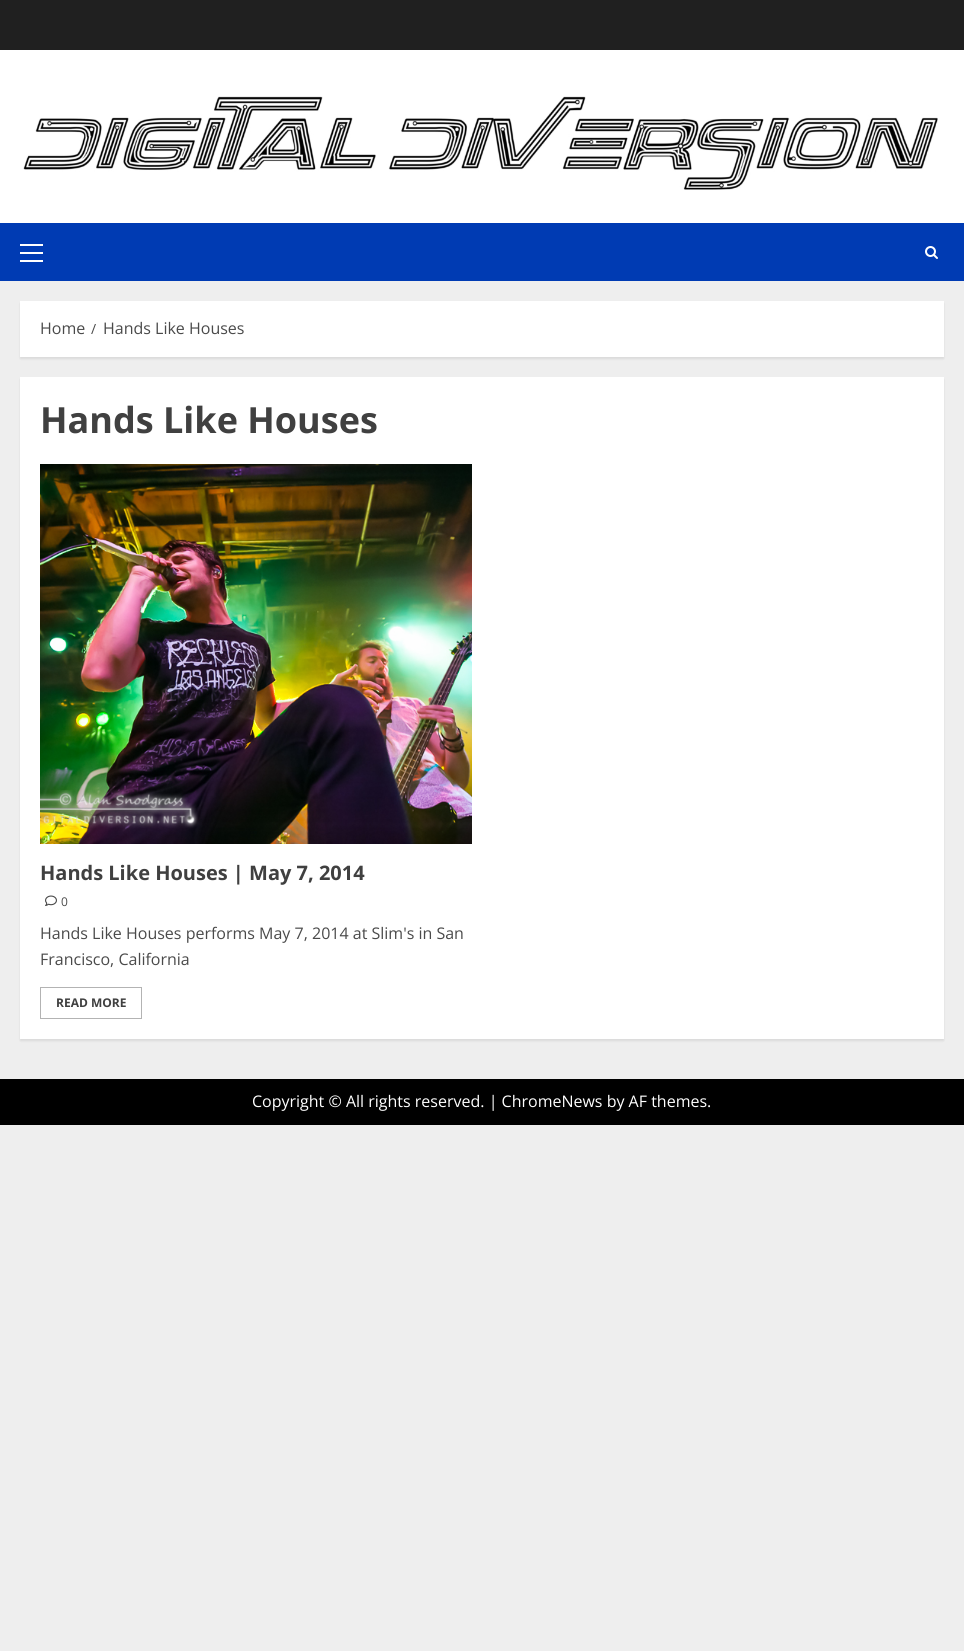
import math
import cairo


def round_path(ctx, x, y, w, h, r):
	ctx.new_sub_path()
	for i, (u, v) in enumerate([(x + w - r, y + h - r), (x + r, y + h - r), (x + r, y + r), (x + w - r, y + r)]):
		ctx.arc(u, v, r, i * math.pi / 2, (i + 1) * math.pi / 2)
	ctx.close_path()

def blur_box(ctx, x, y, w, h, r, blur, alpha):
	ctx.push_group_with_content(cairo.CONTENT_ALPHA)
	ctx.set_operator(cairo.OPERATOR_SOURCE)
	for i in range(15, -16, -2):
		e = blur * i / 6
		if min(w, h) + 2 * e > 0:
			ctx.set_source_rgba(0, 0, 0, alpha * math.erfc((i - 1) / 8.5) / 2)
			round_path(ctx, x - e, y - e, w + 2 * e, h + 2 * e, max(0, min(r + e + blur * .6, min(w, h) / 2 + e)))
			ctx.fill()
	ctx.mask(ctx.pop_group())

def paste(ctx, path, x, y, w, h):
	ctx.save()
	ctx.set_source_surface(cairo.ImageSurface.create_from_png(path), x, y)
	ctx.rectangle(x, y, w, h)
	ctx.fill()
	ctx.restore()

def draw(ctx):
	ctx.set_source_rgb(0.933, 0.933, 0.933)
	ctx.paint()
	ctx.set_source_rgb(0.125, 0.125, 0.125)
	ctx.rectangle(0, 0, 964, 50)
	ctx.fill()
	ctx.set_source_rgb(1, 1, 1)
	ctx.rectangle(0, 50, 964, 173)
	ctx.fill()
	paste(ctx, 'media/1.png', 23, 96, 915, 94)
	ctx.set_source_rgb(0, 0.231, 0.702)
	ctx.rectangle(0, 223, 964, 58)
	ctx.fill()
	ctx.set_source_rgb(1, 1, 1)
	ctx.rectangle(20, 252, 23, 2)
	ctx.rectangle(20, 244, 23, 2)
	ctx.rectangle(20, 260, 23, 2)
	ctx.fill()
	paste(ctx, 'media/2.png', 925, 246, 13, 13)
	ctx.set_source_rgb(0, 0, 0)
	blur_box(ctx, 20, 303, 924, 56, 0, 1, 0.08)
	ctx.set_source_rgb(1, 1, 1)
	ctx.rectangle(20, 301, 924, 56)
	ctx.fill()
	ctx.select_font_face('Open Sans')
	ctx.set_font_size(16)
	ctx.set_source_rgb(0.29, 0.29, 0.29)
	ctx.move_to(40, 334)
	ctx.show_text('Home')
	ctx.set_font_size(14)
	ctx.move_to(91, 334)
	ctx.show_text('/')
	ctx.set_font_size(16)
	ctx.move_to(103, 334)
	ctx.show_text('Hands Like Houses')
	ctx.set_source_rgb(0, 0, 0)
	blur_box(ctx, 20, 379, 924, 662, 0, 1, 0.08)
	ctx.set_source_rgb(1, 1, 1)
	ctx.rectangle(20, 377, 924, 662)
	ctx.fill()
	ctx.select_font_face('Open Sans', cairo.FONT_SLANT_NORMAL, cairo.FONT_WEIGHT_BOLD)
	ctx.set_font_size(36)
	ctx.set_source_rgb(0.251, 0.251, 0.251)
	ctx.move_to(40, 433)
	ctx.show_text('Hands Like Houses')
	paste(ctx, 'media/3.png', 40, 464, 432, 380)
	ctx.set_font_size(20)
	ctx.move_to(40, 880)
	ctx.show_text('Hands Like Houses | May 7, 2014')
	paste(ctx, 'media/4.png', 45, 895, 12, 11)
	ctx.select_font_face('Open Sans')
	ctx.set_font_size(12)
	ctx.set_source_rgb(0.29, 0.29, 0.29)
	ctx.move_to(61, 906)
	ctx.show_text('0')
	ctx.set_font_size(16)
	ctx.move_to(40, 939)
	ctx.show_text('Hands Like Houses performs May 7, 2014 at Slim\'s in San')
	ctx.move_to(40, 965)
	ctx.show_text('Francisco, California')
	ctx.rectangle(40.5, 987.5, 101, 31)
	ctx.set_source_rgb(0.702, 0.702, 0.702)
	ctx.set_line_width(1)
	ctx.stroke()
	ctx.select_font_face('Open Sans', cairo.FONT_SLANT_NORMAL, cairo.FONT_WEIGHT_BOLD)
	ctx.set_font_size(12)
	ctx.set_source_rgb(0.251, 0.251, 0.251)
	ctx.move_to(56, 1007)
	ctx.show_text('READ MORE')
	ctx.set_source_rgb(0, 0, 0)
	ctx.rectangle(0, 1079, 964, 46)
	ctx.fill()
	ctx.select_font_face('Open Sans')
	ctx.set_font_size(16)
	ctx.set_source_rgb(1, 1, 1)
	ctx.move_to(252, 1107)
	ctx.show_text('Copyright © All rights reserved. | ChromeNews by AF themes.')


surface = cairo.ImageSurface(cairo.FORMAT_RGB24, 964, 1651)
ctx = cairo.Context(surface)
options = cairo.FontOptions()
options.set_hint_metrics(cairo.HINT_METRICS_OFF)
options.set_hint_style(cairo.HINT_STYLE_NONE)
ctx.set_font_options(options)
ctx.set_miter_limit(4)
draw(ctx)
surface.write_to_png('image.png')
